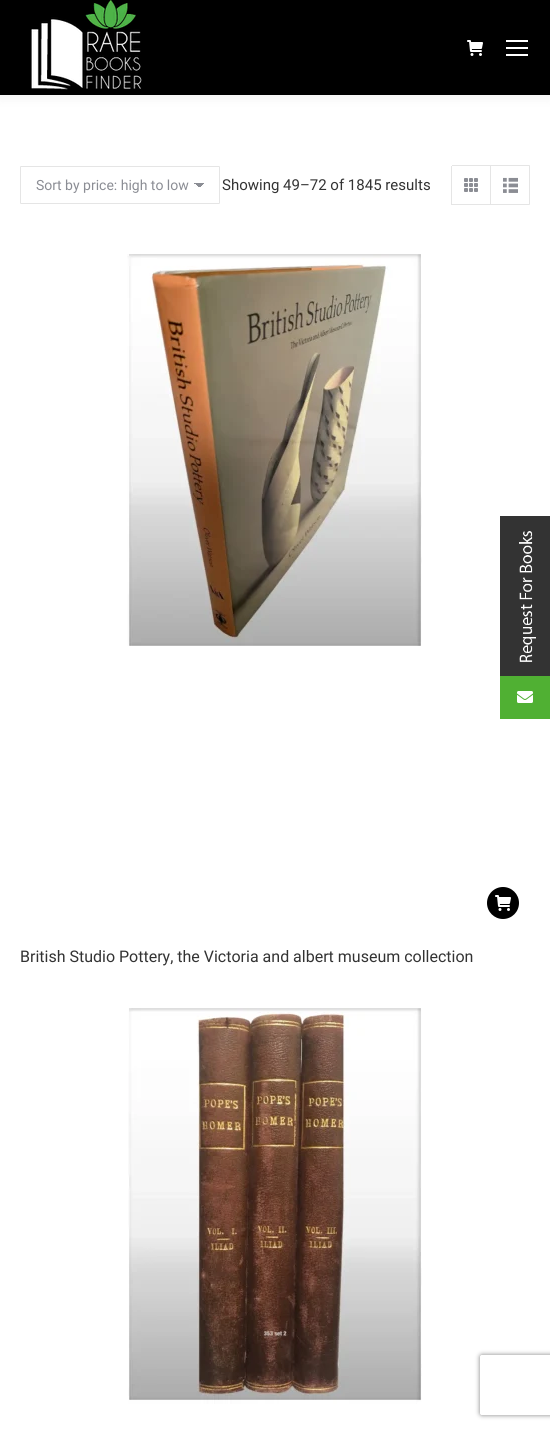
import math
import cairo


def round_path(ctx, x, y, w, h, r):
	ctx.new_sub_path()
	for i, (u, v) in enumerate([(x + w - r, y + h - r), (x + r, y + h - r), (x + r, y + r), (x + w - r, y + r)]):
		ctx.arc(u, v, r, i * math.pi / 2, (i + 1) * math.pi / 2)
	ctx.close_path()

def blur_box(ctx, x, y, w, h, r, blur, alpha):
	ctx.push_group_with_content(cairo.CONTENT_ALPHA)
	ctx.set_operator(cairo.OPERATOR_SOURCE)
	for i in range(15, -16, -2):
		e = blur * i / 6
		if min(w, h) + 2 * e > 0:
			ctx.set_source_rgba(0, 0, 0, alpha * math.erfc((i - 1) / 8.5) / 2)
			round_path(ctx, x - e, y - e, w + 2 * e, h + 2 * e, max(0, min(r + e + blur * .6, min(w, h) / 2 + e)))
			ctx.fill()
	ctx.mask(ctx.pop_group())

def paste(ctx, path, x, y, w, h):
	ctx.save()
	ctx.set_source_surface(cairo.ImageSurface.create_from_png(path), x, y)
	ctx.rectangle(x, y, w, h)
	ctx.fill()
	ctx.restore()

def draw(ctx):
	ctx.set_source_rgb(1, 1, 1)
	ctx.paint()
	ctx.set_source_rgb(0, 0, 0)
	blur_box(ctx, -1, -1, 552, 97, 0, 7.5, 0.07)
	ctx.set_source_rgb(0, 0, 0)
	ctx.rectangle(0, 0, 550, 95)
	ctx.fill()
	paste(ctx, 'media/1.png', 31, 0, 111, 90)
	paste(ctx, 'media/2.png', 467, 40, 16, 16)
	ctx.set_source_rgb(1, 1, 1)
	ctx.rectangle(506, 40, 22, 2)
	ctx.rectangle(506, 47, 22, 2)
	ctx.rectangle(506, 54, 22, 2)
	ctx.fill()
	gradient = cairo.LinearGradient(199, 183, 204, 188)
	gradient.add_color_stop_rgba(0.5, 0.545, 0.553, 0.58, 1)
	gradient.add_color_stop_rgba(0.5, 0.992, 0.992, 0.992, 1)
	ctx.set_source(gradient)
	ctx.rectangle(199, 183, 5, 4)
	ctx.fill()
	gradient = cairo.LinearGradient(194, 188, 199, 183)
	gradient.add_color_stop_rgba(0.5, 0.992, 0.992, 0.992, 1)
	gradient.add_color_stop_rgba(0.5, 0.545, 0.553, 0.58, 1)
	ctx.set_source(gradient)
	ctx.rectangle(194, 183, 5, 4)
	ctx.fill()
	round_path(ctx, 20.5, 166.5, 199, 37, 0.5)
	ctx.set_source_rgb(0.898, 0.898, 0.898)
	ctx.set_line_width(1)
	ctx.stroke()
	ctx.select_font_face('Roboto')
	ctx.set_font_size(14)
	ctx.set_source_rgb(0.545, 0.553, 0.58)
	ctx.move_to(36, 190)
	ctx.show_text('Sort by price: high to low')
	ctx.set_font_size(15)
	ctx.set_source_rgb(0.2, 0.2, 0.2)
	ctx.move_to(222, 190)
	ctx.show_text('Showing 49–72 of 1845 results')
	ctx.set_source_rgb(0.898, 0.898, 0.898)
	ctx.rectangle(452, 165, 38, 1)
	ctx.rectangle(452, 204, 38, 1)
	ctx.rectangle(451, 166, 1, 39)
	ctx.fill()
	paste(ctx, 'media/3.png', 464, 178, 14, 14)
	ctx.new_path()
	ctx.move_to(490.5, 165.5)
	ctx.line_to(529, 165.5)
	ctx.curve_to(529.5, 165.5, 529.5, 165.5, 529.5, 166)
	ctx.line_to(529.5, 204)
	ctx.curve_to(529.5, 204.5, 529.5, 204.5, 529, 204.5)
	ctx.line_to(490.5, 204.5)
	ctx.close_path()
	ctx.stroke()
	paste(ctx, 'media/4.png', 503, 177, 15, 16)
	paste(ctx, 'media/5.png', 127, 254, 295, 392)
	ctx.set_source_rgb(0, 0, 0)
	ctx.arc(503, 903, 16, 0, 2 * math.pi)
	ctx.fill()
	paste(ctx, 'media/2.png', 495, 895, 16, 16)
	ctx.set_font_size(16)
	ctx.set_source_rgb(0.2, 0.2, 0.2)
	ctx.move_to(20, 962)
	ctx.show_text('British Studio Pottery, the Victoria and albert museum collection')
	paste(ctx, 'media/6.png', 128, 1008, 294, 396)
	ctx.rectangle(500, 516, 50, 160)
	ctx.fill()
	paste(ctx, 'media/7.png', 519, 531, 17, 131)
	ctx.set_source_rgb(0.314, 0.69, 0.2)
	ctx.rectangle(500, 676, 50, 43)
	ctx.fill()
	paste(ctx, 'media/8.png', 517, 691, 16, 12)
	ctx.save()
	ctx.set_fill_rule(cairo.FILL_RULE_EVEN_ODD)
	ctx.new_path()
	ctx.move_to(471, 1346)
	ctx.line_to(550, 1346)
	ctx.line_to(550, 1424)
	ctx.line_to(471, 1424)
	ctx.close_path()
	ctx.move_to(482, 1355)
	ctx.line_to(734, 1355)
	ctx.curve_to(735, 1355, 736, 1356, 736, 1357)
	ctx.line_to(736, 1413)
	ctx.curve_to(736, 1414, 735, 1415, 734, 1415)
	ctx.line_to(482, 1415)
	ctx.curve_to(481, 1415, 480, 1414, 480, 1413)
	ctx.line_to(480, 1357)
	ctx.curve_to(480, 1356, 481, 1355, 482, 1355)
	ctx.close_path()
	ctx.clip()
	ctx.set_source_rgb(0.502, 0.502, 0.502)
	blur_box(ctx, 480, 1355, 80, 60, 2, 2.5, 1)
	ctx.restore()


surface = cairo.ImageSurface(cairo.FORMAT_RGB24, 550, 1429)
ctx = cairo.Context(surface)
options = cairo.FontOptions()
options.set_hint_metrics(cairo.HINT_METRICS_OFF)
options.set_hint_style(cairo.HINT_STYLE_NONE)
ctx.set_font_options(options)
ctx.set_miter_limit(4)
draw(ctx)
surface.write_to_png('image.png')
